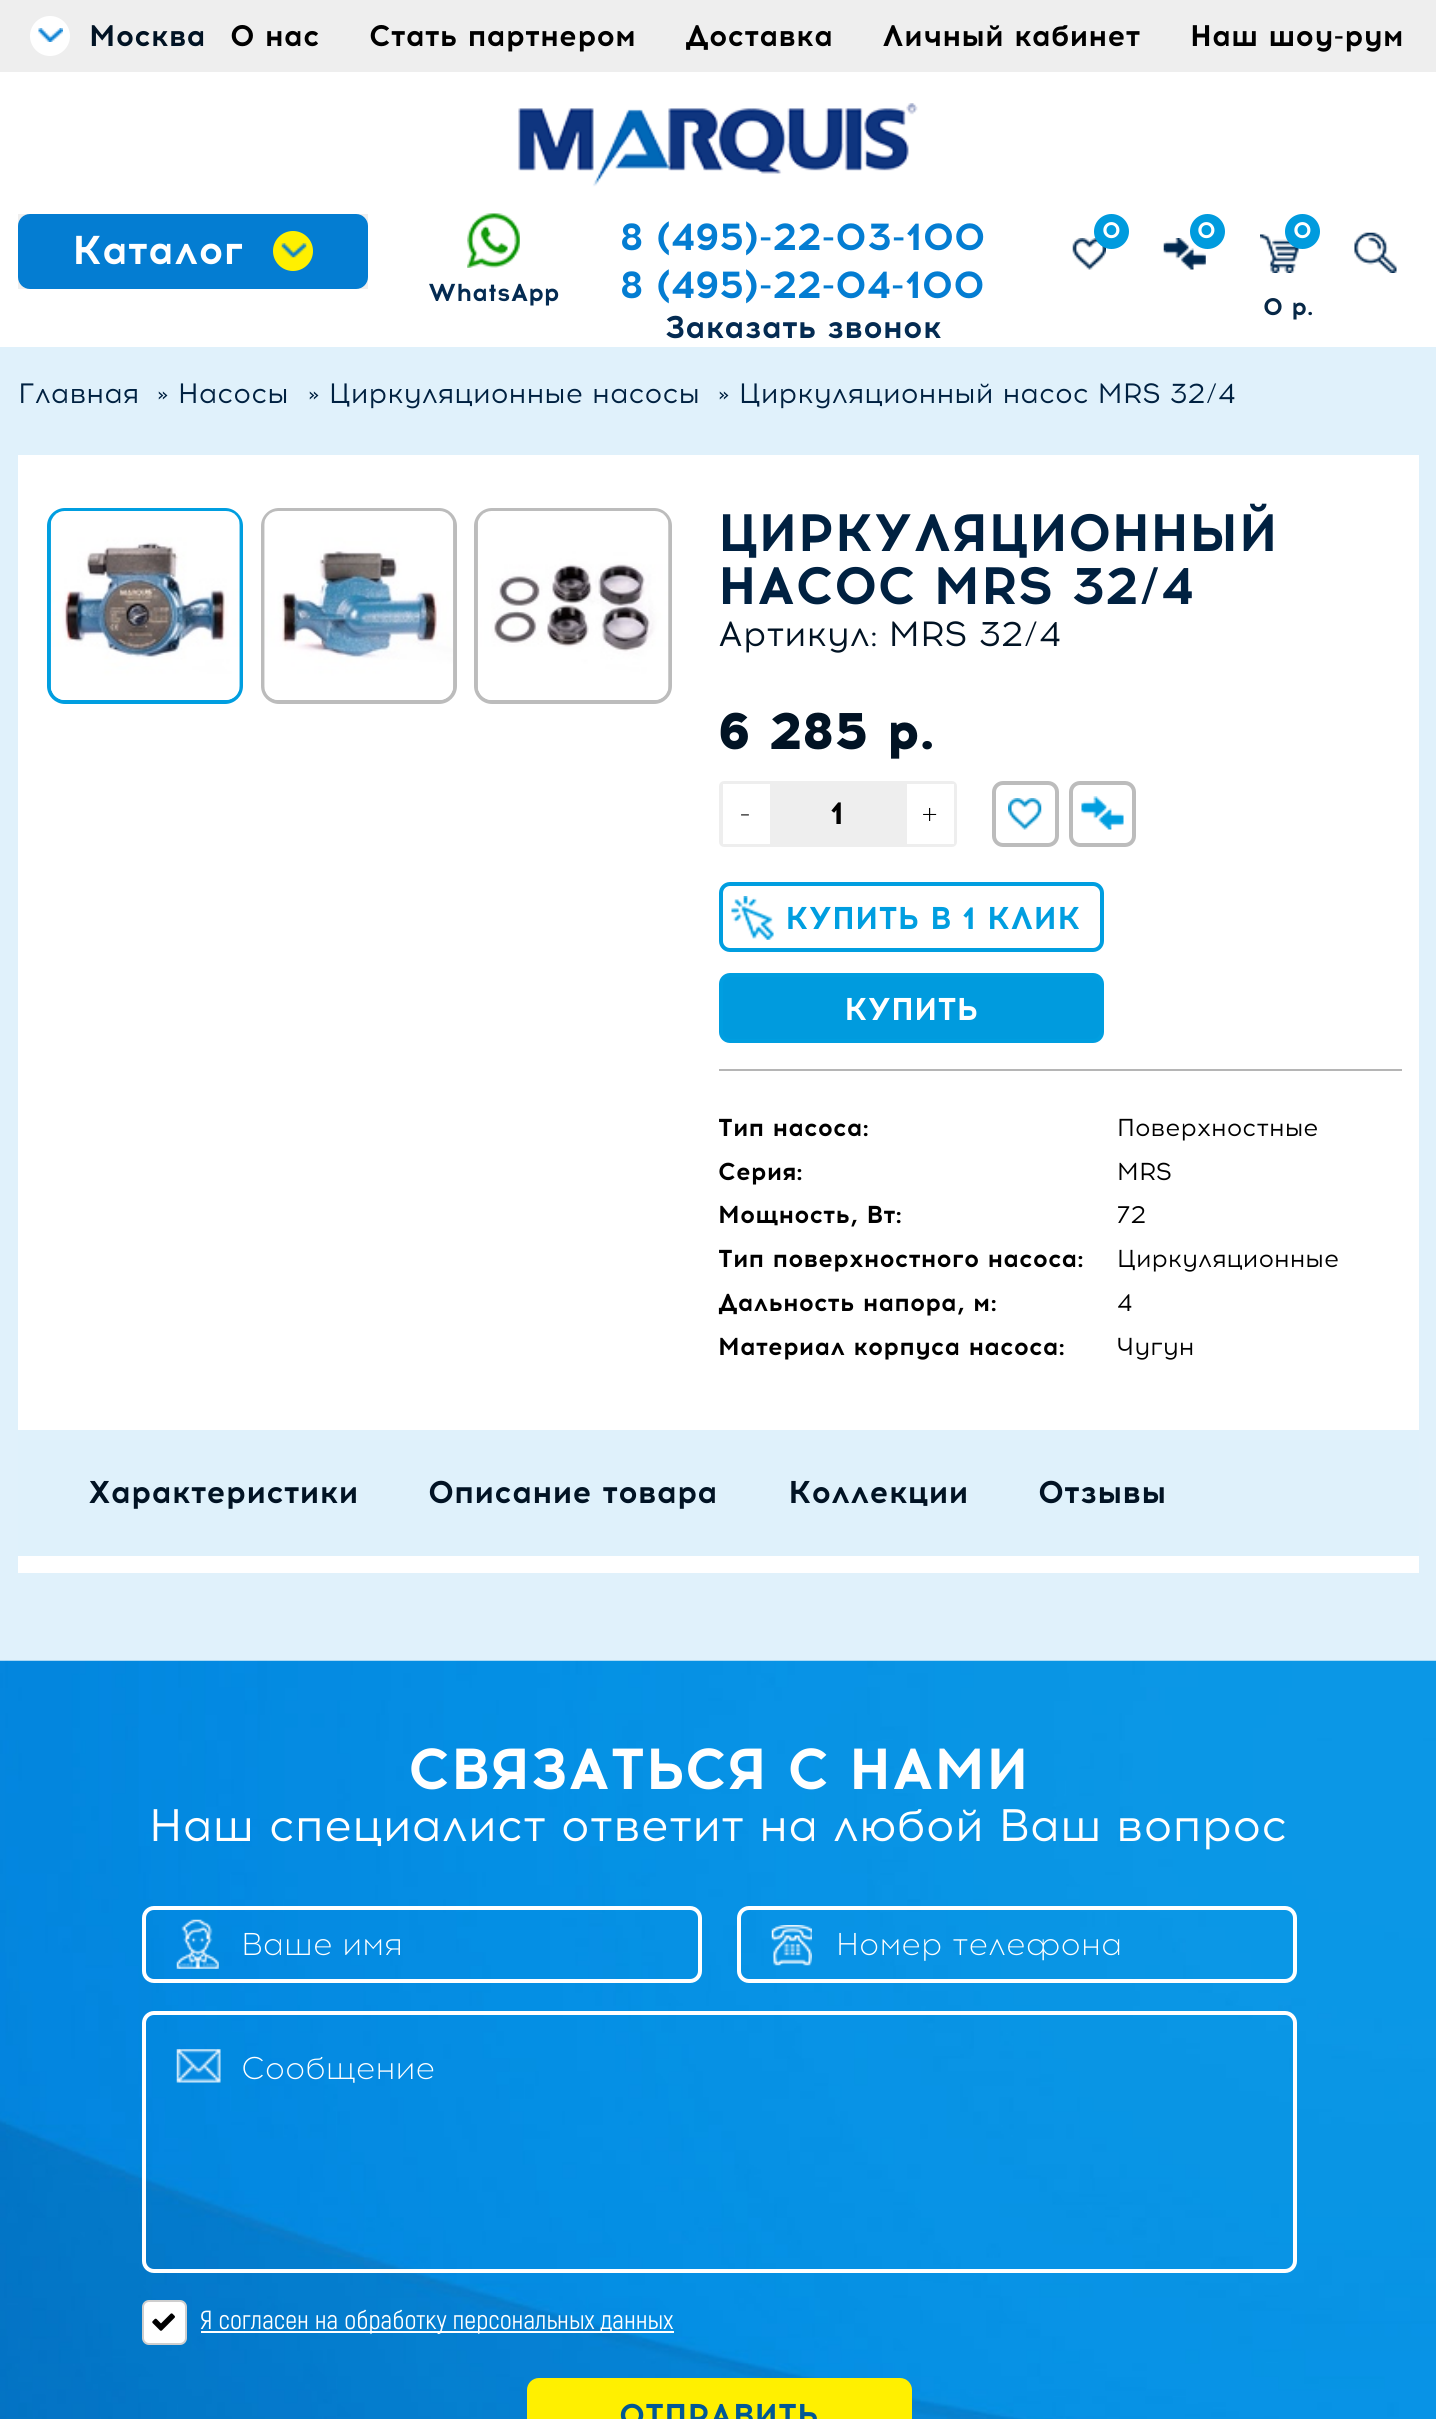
import math
import cairo


def round_path(ctx, x, y, w, h, r):
	ctx.new_sub_path()
	for i, (u, v) in enumerate([(x + w - r, y + h - r), (x + r, y + h - r), (x + r, y + r), (x + w - r, y + r)]):
		ctx.arc(u, v, r, i * math.pi / 2, (i + 1) * math.pi / 2)
	ctx.close_path()

def paste(ctx, path, x, y, w, h):
	ctx.save()
	ctx.set_source_surface(cairo.ImageSurface.create_from_png(path), x, y)
	ctx.rectangle(x, y, w, h)
	ctx.fill()
	ctx.restore()

def draw(ctx):
	ctx.set_source_rgb(1, 1, 1)
	ctx.paint()
	ctx.set_source_rgb(0.933, 0.933, 0.933)
	ctx.rectangle(0, 0, 1436, 72)
	ctx.fill()
	ctx.set_source_rgb(1, 1, 1)
	ctx.arc(50, 36, 20, 0, 2 * math.pi)
	ctx.fill()
	paste(ctx, 'media/1.png', 38, 28, 25, 14)
	ctx.select_font_face('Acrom', cairo.FONT_SLANT_NORMAL, cairo.FONT_WEIGHT_BOLD)
	ctx.set_font_size(29.75)
	ctx.set_source_rgb(0.004, 0.075, 0.141)
	ctx.move_to(89, 46)
	ctx.show_text('Москва')
	ctx.set_source_rgb(0, 0, 0)
	for x, y, s in [
		(230, 46, 'О нас'),
		(369, 46, 'Стать партнером'),
		(685, 46, 'Доставка'),
		(882, 46, 'Личный кабинет'),
		(1190, 46, 'Наш шоу-рум'),
	]:
		ctx.move_to(x, y)
		ctx.show_text(s)
	paste(ctx, 'media/2.png', 518, 103, 400, 84)
	ctx.set_source_rgb(0.937, 0.937, 0.937)
	ctx.rectangle(18, 214, 350, 75)
	ctx.fill()
	ctx.set_source_rgb(0.016, 0.49, 0.824)
	round_path(ctx, 18, 214, 350, 75, 12)
	ctx.fill()
	ctx.set_font_size(40.25)
	ctx.set_source_rgb(1, 1, 1)
	ctx.move_to(72, 264)
	ctx.show_text('Каталог')
	ctx.set_source_rgb(1, 0.941, 0)
	ctx.new_path()
	ctx.arc(293, 251, 20, 0, 2 * math.pi)
	ctx.fill()
	paste(ctx, 'media/3.png', 281, 243, 26, 15)
	ctx.set_font_size(38.5)
	ctx.set_source_rgb(0.016, 0.49, 0.824)
	ctx.move_to(620, 250)
	ctx.show_text('8 (495)-22-03-100')
	ctx.move_to(620, 298)
	ctx.show_text('8 (495)-22-04-100')
	ctx.set_font_size(31.5)
	ctx.set_source_rgb(0.016, 0.169, 0.322)
	ctx.move_to(665, 338)
	ctx.show_text('Заказать звонок')
	paste(ctx, 'media/4.png', 1072, 238, 34, 32)
	ctx.set_source_rgb(0, 0.608, 0.871)
	ctx.arc(1111.5, 231.5, 17.5, 0, 2 * math.pi)
	ctx.fill()
	ctx.set_font_size(23)
	ctx.set_source_rgb(1, 1, 1)
	ctx.move_to(1102, 238)
	ctx.show_text('0')
	paste(ctx, 'media/5.png', 1163, 238, 43, 32)
	ctx.set_source_rgb(0, 0.608, 0.871)
	ctx.arc(1207.5, 231.5, 17.5, 0, 2 * math.pi)
	ctx.fill()
	ctx.set_source_rgb(1, 1, 1)
	ctx.move_to(1197, 238)
	ctx.show_text('0')
	paste(ctx, 'media/6.png', 1260, 234, 40, 39)
	ctx.set_source_rgb(0, 0.608, 0.871)
	ctx.arc(1302.5, 231.5, 17.5, 0, 2 * math.pi)
	ctx.fill()
	ctx.set_source_rgb(1, 1, 1)
	ctx.move_to(1293, 238)
	ctx.show_text('0')
	ctx.set_font_size(24.5)
	ctx.set_source_rgb(0.031, 0.157, 0.278)
	ctx.move_to(1263, 315)
	ctx.show_text('0 р.')
	paste(ctx, 'media/7.png', 1354, 232, 43, 41)
	paste(ctx, 'media/8.png', 467, 213, 53, 55)
	ctx.set_source_rgb(0.016, 0.169, 0.322)
	ctx.move_to(428, 301)
	ctx.show_text('WhatsApp')
	ctx.set_source_rgb(0.878, 0.945, 0.984)
	ctx.rectangle(0, 347, 1436, 1314)
	ctx.fill()
	ctx.select_font_face('Acrom')
	ctx.set_font_size(28)
	ctx.set_source_rgb(0, 0.129, 0.255)
	for x, y, s in [
		(18, 403, 'Главная'),
		(157, 403, '» Насосы'),
		(308, 403, '» Циркуляционные насосы'),
		(718, 403, '» Циркуляционный насос MRS 32/4'),
	]:
		ctx.move_to(x, y)
		ctx.show_text(s)
	ctx.set_source_rgb(1, 1, 1)
	ctx.rectangle(18, 455, 1401, 1118)
	ctx.fill()
	round_path(ctx, 49, 510, 192, 192, 16)
	ctx.set_source_rgb(0, 0.62, 0.878)
	ctx.set_line_width(4)
	ctx.stroke()
	paste(ctx, 'media/9.png', 50, 511, 190, 189)
	round_path(ctx, 263, 510, 192, 192, 16)
	ctx.set_source_rgb(0.737, 0.737, 0.737)
	ctx.stroke()
	paste(ctx, 'media/10.png', 264, 511, 190, 189)
	round_path(ctx, 476, 510, 194, 192, 16)
	ctx.stroke()
	paste(ctx, 'media/11.png', 477, 511, 192, 189)
	ctx.select_font_face('Acrom', cairo.FONT_SLANT_NORMAL, cairo.FONT_WEIGHT_BOLD)
	ctx.set_font_size(52.5)
	ctx.set_source_rgb(0, 0.129, 0.255)
	ctx.move_to(718, 551)
	ctx.show_text('ЦИРКУЛЯЦИОННЫЙ')
	ctx.move_to(718, 604)
	ctx.show_text('НАСОС MRS 32/4')
	ctx.select_font_face('Acrom')
	ctx.set_font_size(35)
	ctx.set_source_rgb(0.004, 0.075, 0.141)
	ctx.move_to(718, 646)
	ctx.show_text('Артикул: MRS 32/4')
	ctx.set_source_rgb(0.71, 0.71, 0.71)
	ctx.rectangle(719, 1069, 683, 2)
	ctx.fill()
	ctx.select_font_face('Acrom ExtraBold')
	ctx.set_font_size(52.5)
	ctx.set_source_rgb(0.004, 0.075, 0.141)
	ctx.move_to(718, 749)
	ctx.show_text('6 285 р.')
	round_path(ctx, 721, 783, 234, 62, 3)
	ctx.set_source_rgb(0.933, 0.933, 0.933)
	ctx.stroke()
	ctx.set_source_rgb(1, 1, 1)
	ctx.rectangle(723, 784, 47, 60)
	ctx.fill()
	ctx.select_font_face('Acrom Light')
	ctx.set_font_size(31.5)
	ctx.set_source_rgb(0, 0, 0)
	ctx.move_to(739, 824)
	ctx.show_text('-')
	ctx.set_source_rgb(0.933, 0.933, 0.933)
	ctx.rectangle(770, 785, 137, 58)
	ctx.fill()
	ctx.select_font_face('Acrom', cairo.FONT_SLANT_NORMAL, cairo.FONT_WEIGHT_BOLD)
	ctx.set_source_rgb(0, 0, 0)
	ctx.move_to(830, 824)
	ctx.show_text('1')
	ctx.set_source_rgb(1, 1, 1)
	ctx.rectangle(907, 784, 47, 60)
	ctx.fill()
	ctx.select_font_face('Acrom Light')
	ctx.set_source_rgb(0, 0, 0)
	ctx.move_to(921, 824)
	ctx.show_text('+')
	paste(ctx, 'media/12.png', 1008, 798, 34, 32)
	round_path(ctx, 994, 783, 63, 62, 9)
	ctx.set_source_rgb(0.737, 0.737, 0.737)
	ctx.stroke()
	paste(ctx, 'media/13.png', 1081, 796, 43, 34)
	round_path(ctx, 1071, 783, 63, 62, 9)
	ctx.stroke()
	paste(ctx, 'media/14.png', 731, 896, 43, 44)
	round_path(ctx, 721, 884, 381, 66, 9)
	ctx.set_source_rgb(0, 0.62, 0.878)
	ctx.stroke()
	ctx.select_font_face('Acrom', cairo.FONT_SLANT_NORMAL, cairo.FONT_WEIGHT_BOLD)
	ctx.move_to(785, 929)
	ctx.show_text('КУПИТЬ В 1 КЛИК')
	ctx.set_source_rgb(0, 0.608, 0.871)
	round_path(ctx, 721, 975, 381, 66, 9)
	ctx.fill_preserve()
	ctx.set_source_rgb(0, 0.62, 0.878)
	ctx.stroke()
	ctx.set_source_rgb(1, 1, 1)
	ctx.move_to(844, 1020)
	ctx.show_text('КУПИТЬ')
	ctx.set_font_size(24.5)
	ctx.set_source_rgb(0, 0, 0)
	ctx.move_to(718, 1136)
	ctx.show_text('Тип насоса:')
	ctx.select_font_face('Acrom')
	ctx.move_to(1117, 1136)
	ctx.show_text('Поверхностные')
	ctx.select_font_face('Acrom', cairo.FONT_SLANT_NORMAL, cairo.FONT_WEIGHT_BOLD)
	ctx.move_to(718, 1180)
	ctx.show_text('Серия:')
	ctx.select_font_face('Acrom')
	ctx.move_to(1117, 1180)
	ctx.show_text('MRS')
	ctx.select_font_face('Acrom', cairo.FONT_SLANT_NORMAL, cairo.FONT_WEIGHT_BOLD)
	ctx.move_to(718, 1223)
	ctx.show_text('Мощность, Вт:')
	ctx.select_font_face('Acrom')
	ctx.move_to(1117, 1223)
	ctx.show_text('72')
	ctx.select_font_face('Acrom', cairo.FONT_SLANT_NORMAL, cairo.FONT_WEIGHT_BOLD)
	ctx.move_to(718, 1267)
	ctx.show_text('Тип поверхностного насоса:')
	ctx.select_font_face('Acrom')
	ctx.move_to(1117, 1267)
	ctx.show_text('Циркуляционные')
	ctx.select_font_face('Acrom', cairo.FONT_SLANT_NORMAL, cairo.FONT_WEIGHT_BOLD)
	ctx.move_to(718, 1311)
	ctx.show_text('Дальность напора, м:')
	ctx.select_font_face('Acrom')
	ctx.move_to(1117, 1311)
	ctx.show_text('4')
	ctx.select_font_face('Acrom', cairo.FONT_SLANT_NORMAL, cairo.FONT_WEIGHT_BOLD)
	ctx.move_to(718, 1355)
	ctx.show_text('Материал корпуса насоса:')
	ctx.select_font_face('Acrom')
	ctx.move_to(1117, 1355)
	ctx.show_text('Чугун')
	ctx.set_source_rgb(0.875, 0.945, 0.984)
	ctx.rectangle(18, 1430, 1401, 126)
	ctx.fill()
	ctx.select_font_face('Acrom', cairo.FONT_SLANT_NORMAL, cairo.FONT_WEIGHT_BOLD)
	ctx.set_font_size(31.5)
	ctx.set_source_rgb(0.004, 0.075, 0.141)
	for x, y, s in [
		(88, 1503, 'Характеристики'),
		(428, 1503, 'Описание товара'),
		(788, 1503, 'Коллекции'),
		(1038, 1503, 'Отзывы'),
	]:
		ctx.move_to(x, y)
		ctx.show_text(s)
	paste(ctx, 'media/15.png', 0, 1660, 1436, 759)
	ctx.set_font_size(57.75)
	ctx.set_source_rgb(1, 1, 1)
	ctx.move_to(408, 1789)
	ctx.show_text('СВЯЗАТЬСЯ С НАМИ')
	ctx.select_font_face('Acrom')
	ctx.set_font_size(45.5)
	ctx.move_to(149, 1841)
	ctx.show_text('Наш специалист ответит на любой Ваш вопрос')
	paste(ctx, 'media/16.png', 176, 1919, 43, 50)
	round_path(ctx, 144, 1908, 556, 73, 10)
	ctx.stroke()
	ctx.select_font_face('Acrom Light')
	ctx.set_font_size(31.5)
	ctx.move_to(241, 1955)
	ctx.show_text('Ваше имя')
	paste(ctx, 'media/17.png', 771, 1925, 41, 41)
	round_path(ctx, 739, 1908, 556, 73, 10)
	ctx.stroke()
	ctx.move_to(836, 1955)
	ctx.show_text('Номер телефона')
	paste(ctx, 'media/18.png', 176, 2049, 45, 34)
	round_path(ctx, 144, 2013, 1151, 258, 10)
	ctx.stroke()
	ctx.move_to(241, 2079)
	ctx.show_text('Сообщение')
	round_path(ctx, 143, 2301, 43, 43, 6)
	ctx.fill_preserve()
	ctx.set_source_rgb(0.808, 0.808, 0.808)
	ctx.set_line_width(2)
	ctx.stroke()
	ctx.set_source_rgb(1, 1, 1)
	ctx.rectangle(201, 2331, 473, 2)
	ctx.fill()
	ctx.select_font_face('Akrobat')
	ctx.set_font_size(26.25)
	ctx.move_to(200, 2329)
	ctx.show_text('Я согласен на обработку персональных данных')
	paste(ctx, 'media/19.png', 152, 2313, 23, 18)
	ctx.set_source_rgb(1, 0.941, 0)
	round_path(ctx, 527, 2378, 385, 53, 12)
	ctx.fill()
	ctx.select_font_face('Acrom', cairo.FONT_SLANT_NORMAL, cairo.FONT_WEIGHT_BOLD)
	ctx.set_font_size(31.5)
	ctx.set_source_rgb(0.004, 0.345, 0.584)
	ctx.move_to(619, 2426)
	ctx.show_text('ОТПРАВИТЬ')


surface = cairo.ImageSurface(cairo.FORMAT_RGB24, 1436, 2419)
ctx = cairo.Context(surface)
options = cairo.FontOptions()
options.set_hint_metrics(cairo.HINT_METRICS_OFF)
options.set_hint_style(cairo.HINT_STYLE_NONE)
ctx.set_font_options(options)
ctx.set_miter_limit(4)
draw(ctx)
surface.write_to_png('image.png')
